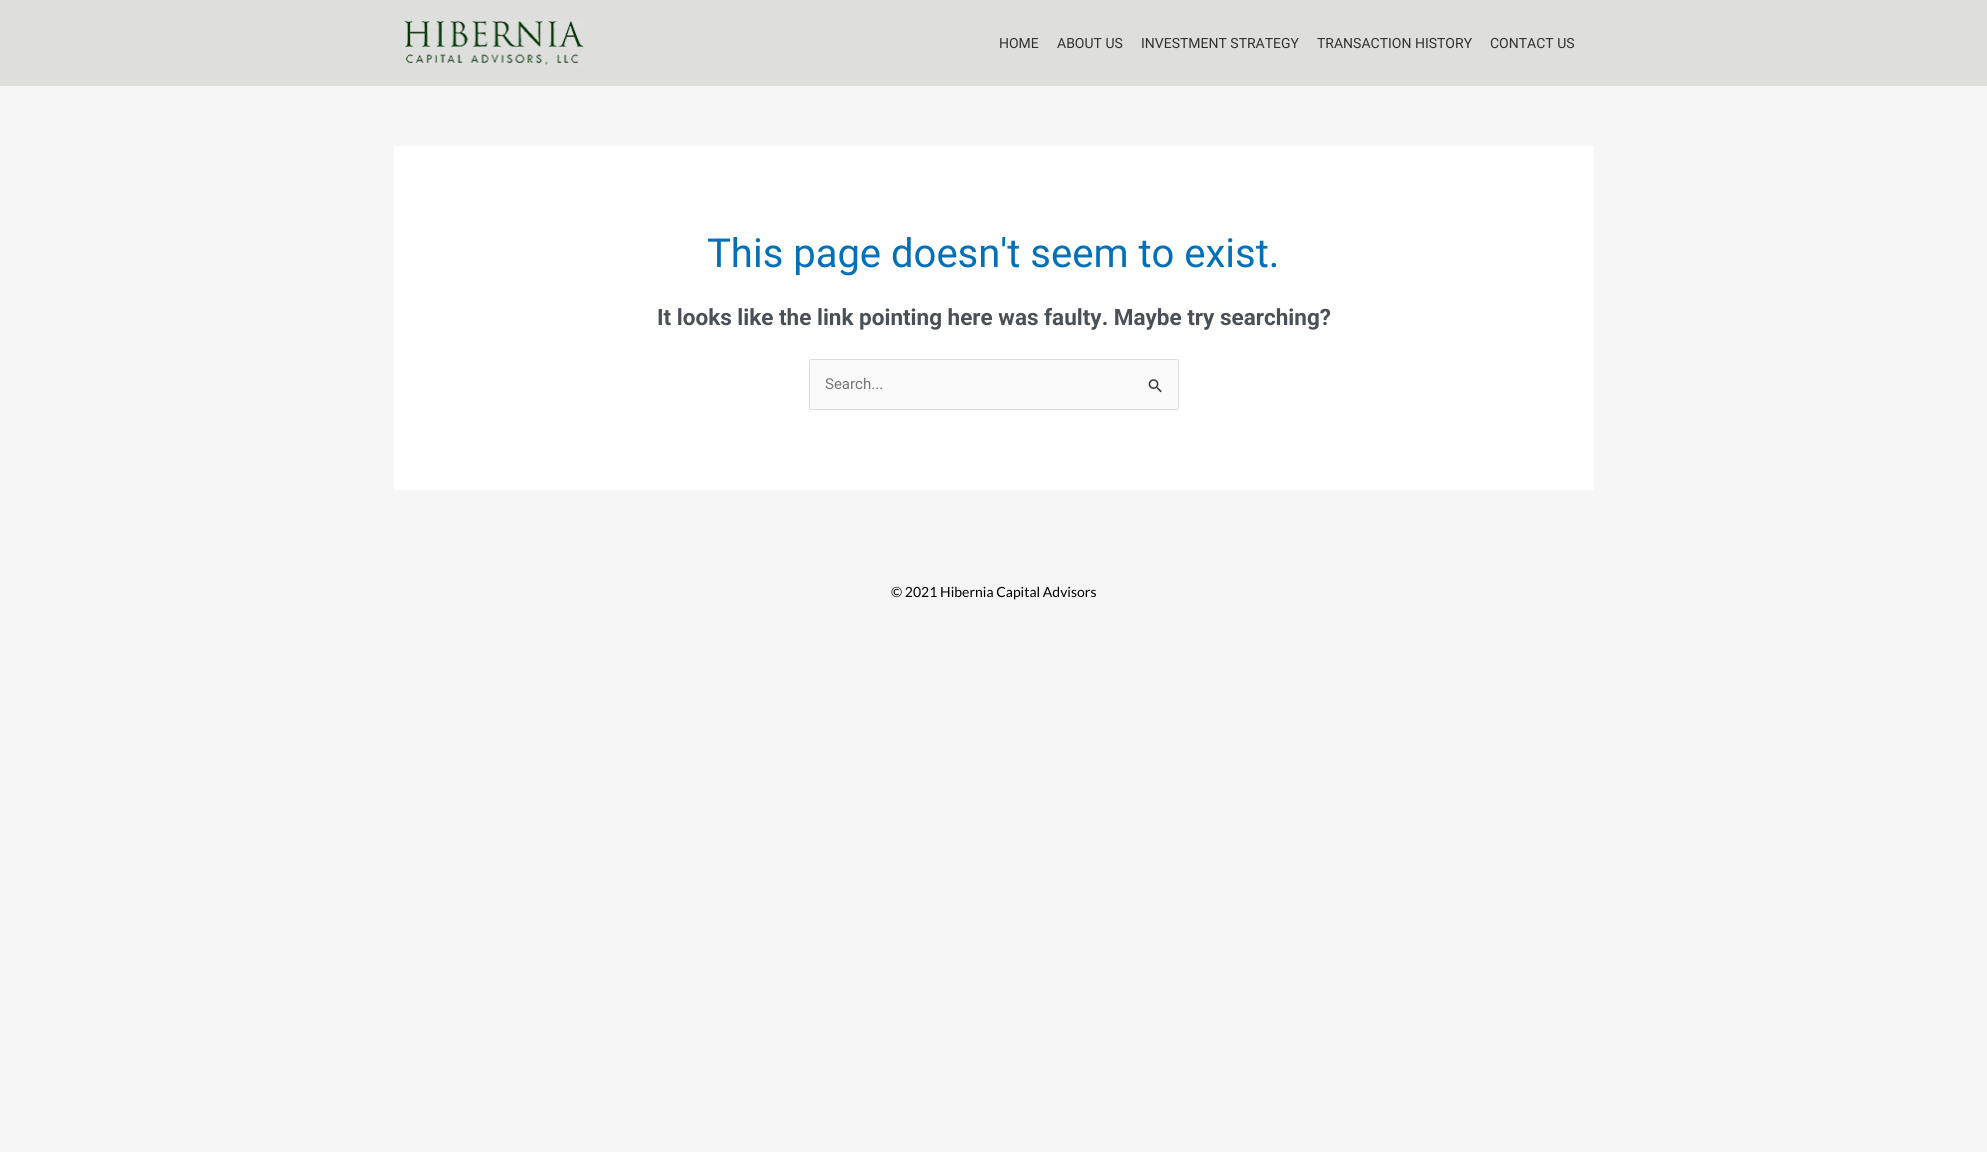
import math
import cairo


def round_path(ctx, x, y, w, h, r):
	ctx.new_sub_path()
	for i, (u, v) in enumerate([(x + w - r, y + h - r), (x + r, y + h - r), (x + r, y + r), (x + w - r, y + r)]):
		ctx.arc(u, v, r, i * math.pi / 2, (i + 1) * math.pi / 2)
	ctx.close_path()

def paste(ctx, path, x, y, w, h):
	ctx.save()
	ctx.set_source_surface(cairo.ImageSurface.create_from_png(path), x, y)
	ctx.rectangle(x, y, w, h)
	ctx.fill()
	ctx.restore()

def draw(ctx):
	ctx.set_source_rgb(0.961, 0.961, 0.961)
	ctx.paint()
	ctx.set_source_rgb(0.871, 0.871, 0.863)
	ctx.rectangle(0, 0, 1987, 86)
	ctx.fill()
	paste(ctx, 'media/1.png', 404, 21, 180, 44)
	ctx.select_font_face('Roboto')
	ctx.set_font_size(14)
	ctx.set_source_rgb(0.192, 0.192, 0.192)
	for x, y, s in [
		(999, 48, 'HOME'),
		(1057, 48, 'ABOUT US'),
		(1141, 48, 'INVESTMENT STRATEGY'),
		(1317, 48, 'TRANSACTION HISTORY'),
		(1490, 48, 'CONTACT US'),
	]:
		ctx.move_to(x, y)
		ctx.show_text(s)
	ctx.set_source_rgb(1, 1, 1)
	ctx.rectangle(394, 146, 1200, 344)
	ctx.fill()
	ctx.set_font_size(40)
	ctx.set_source_rgb(0.004, 0.439, 0.725)
	ctx.move_to(707, 267)
	ctx.show_text('This page doesn\'t seem to exist.')
	ctx.select_font_face('Roboto', cairo.FONT_SLANT_NORMAL, cairo.FONT_WEIGHT_BOLD)
	ctx.set_font_size(22.5)
	ctx.set_source_rgb(0.294, 0.31, 0.345)
	ctx.move_to(657, 325)
	ctx.show_text('It looks like the link pointing here was faulty. Maybe try searching?')
	ctx.set_source_rgb(0.98, 0.98, 0.98)
	round_path(ctx, 809.5, 359.5, 369, 50, 1.5)
	ctx.fill_preserve()
	ctx.set_source_rgb(0.867, 0.867, 0.867)
	ctx.set_line_width(1)
	ctx.stroke()
	ctx.select_font_face('Roboto')
	ctx.set_font_size(15)
	ctx.set_source_rgb(0.459, 0.459, 0.459)
	ctx.move_to(825, 389)
	ctx.show_text('Search...')
	paste(ctx, 'media/2.png', 1148, 379, 14, 14)
	ctx.select_font_face('Lato')
	ctx.set_font_size(14)
	ctx.set_source_rgb(0, 0, 0)
	ctx.move_to(891, 597)
	ctx.show_text('© 2021 Hibernia Capital Advisors')


surface = cairo.ImageSurface(cairo.FORMAT_RGB24, 1987, 1152)
ctx = cairo.Context(surface)
options = cairo.FontOptions()
options.set_hint_metrics(cairo.HINT_METRICS_OFF)
options.set_hint_style(cairo.HINT_STYLE_NONE)
ctx.set_font_options(options)
ctx.set_miter_limit(4)
draw(ctx)
surface.write_to_png('image.png')
